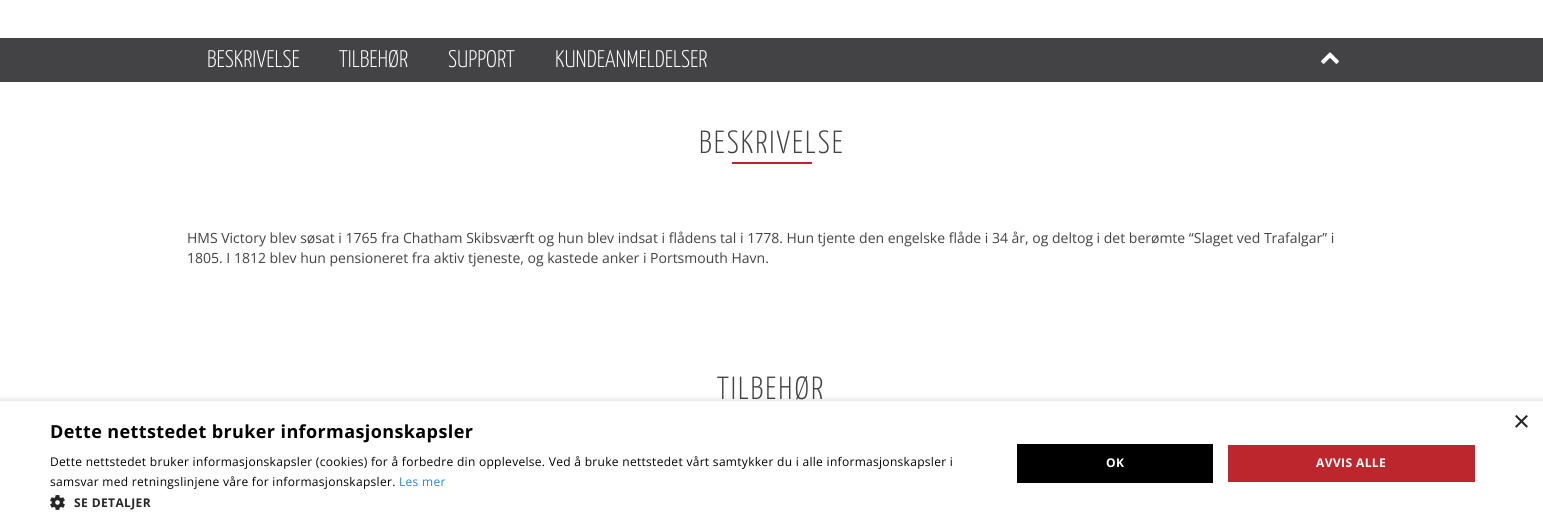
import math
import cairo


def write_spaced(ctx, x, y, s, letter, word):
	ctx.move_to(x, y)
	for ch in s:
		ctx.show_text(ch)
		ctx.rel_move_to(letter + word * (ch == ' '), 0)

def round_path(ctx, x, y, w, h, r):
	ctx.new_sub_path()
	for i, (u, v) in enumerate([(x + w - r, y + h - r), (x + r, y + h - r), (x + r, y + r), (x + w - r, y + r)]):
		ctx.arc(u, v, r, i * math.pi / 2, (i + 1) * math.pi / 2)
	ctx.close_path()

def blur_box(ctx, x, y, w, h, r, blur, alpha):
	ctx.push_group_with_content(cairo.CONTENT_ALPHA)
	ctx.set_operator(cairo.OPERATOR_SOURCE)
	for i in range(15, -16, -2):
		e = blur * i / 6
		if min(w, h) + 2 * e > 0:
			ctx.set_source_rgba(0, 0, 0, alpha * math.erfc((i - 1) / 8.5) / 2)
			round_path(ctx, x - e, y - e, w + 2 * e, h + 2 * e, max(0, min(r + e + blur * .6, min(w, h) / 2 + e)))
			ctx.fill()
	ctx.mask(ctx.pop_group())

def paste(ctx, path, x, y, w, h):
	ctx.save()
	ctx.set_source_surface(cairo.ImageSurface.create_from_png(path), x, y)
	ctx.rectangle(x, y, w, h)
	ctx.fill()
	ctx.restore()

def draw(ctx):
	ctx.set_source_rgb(1, 1, 1)
	ctx.paint()
	ctx.set_source_rgb(0.263, 0.259, 0.267)
	ctx.rectangle(0, 38, 1543, 44)
	ctx.fill()
	ctx.select_font_face('Yanone Kaffeesatz Light')
	ctx.set_font_size(24)
	ctx.set_source_rgb(1, 1, 1)
	for x, y, s in [
		(207, 67, 'BESKRIVELSE'),
		(339, 67, 'TILBEHØR'),
		(448, 67, 'SUPPORT'),
		(555, 67, 'KUNDEANMELDELSER'),
	]:
		ctx.move_to(x, y)
		ctx.show_text(s)
	paste(ctx, 'media/1.png', 1321, 52, 18, 12)
	ctx.set_font_size(32)
	ctx.set_source_rgb(0.263, 0.259, 0.267)
	write_spaced(ctx, 699, 153, 'BESKRIVELSE', 2, 0)
	ctx.set_source_rgb(0.741, 0.149, 0.173)
	ctx.rectangle(732, 162, 80, 2)
	ctx.fill()
	ctx.select_font_face('Open Sans')
	ctx.set_font_size(14)
	ctx.set_source_rgb(0.263, 0.259, 0.267)
	ctx.move_to(187, 243)
	ctx.show_text('HMS Victory blev søsat i 1765 fra Chatham Skibsværft og hun blev indsat i flådens tal i 1778. Hun tjente den engelske flåde i 34 år, og deltog i det berømte “Slaget ved Trafalgar” i')
	ctx.move_to(187, 263)
	ctx.show_text('1805. I 1812 blev hun pensioneret fra aktiv tjeneste, og kastede anker i Portsmouth Havn.')
	ctx.select_font_face('Yanone Kaffeesatz Light')
	ctx.set_font_size(32)
	write_spaced(ctx, 717, 399, 'TILBEHØR', 2, 0)
	ctx.set_source_rgb(0, 0, 0)
	blur_box(ctx, 1, 403, 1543, 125, 0, 4, 0.35)
	ctx.set_source_rgb(1, 1, 1)
	ctx.rectangle(0, 401, 1543, 125)
	ctx.fill()
	ctx.select_font_face('Liberation Sans')
	ctx.set_font_size(29)
	ctx.set_source_rgb(0.149, 0.149, 0.149)
	ctx.move_to(1513, 431)
	ctx.show_text('×')
	ctx.select_font_face('Open Sans', cairo.FONT_SLANT_NORMAL, cairo.FONT_WEIGHT_BOLD)
	ctx.set_font_size(18)
	ctx.set_source_rgb(0, 0, 0)
	write_spaced(ctx, 50, 438, 'Dette nettstedet bruker informasjonskapsler', 0.4, 0)
	ctx.select_font_face('Open Sans')
	ctx.set_font_size(12)
	write_spaced(ctx, 50, 466, 'Dette nettstedet bruker informasjonskapsler (cookies) for å forbedre din opplevelse. Ved å bruke nettstedet vårt samtykker du i alle informasjonskapsler i', 0.3, 0)
	write_spaced(ctx, 50, 486, 'samsvar med retningslinjene våre for informasjonskapsler.', 0.3, 0)
	ctx.set_source_rgb(0.161, 0.525, 0.8)
	write_spaced(ctx, 399, 486, 'Les mer', 0.3, 0)
	paste(ctx, 'media/2.png', 50, 495, 15, 15)
	ctx.select_font_face('Open Sans', cairo.FONT_SLANT_NORMAL, cairo.FONT_WEIGHT_BOLD)
	ctx.set_source_rgb(0.149, 0.149, 0.149)
	write_spaced(ctx, 74, 507, 'SE DETALJER', 0.4, 0)
	ctx.set_source_rgb(0, 0, 0)
	ctx.rectangle(1017, 444, 196, 39)
	ctx.fill()
	ctx.set_source_rgb(1, 1, 1)
	write_spaced(ctx, 1106, 467, 'OK', 0.4, 0)
	ctx.set_source_rgb(0.737, 0.149, 0.173)
	ctx.rectangle(1228, 445, 247, 37)
	ctx.fill()
	ctx.set_source_rgb(1, 1, 1)
	write_spaced(ctx, 1316, 467, 'AVVIS ALLE', 0.4, 0)


surface = cairo.ImageSurface(cairo.FORMAT_RGB24, 1543, 526)
ctx = cairo.Context(surface)
options = cairo.FontOptions()
options.set_hint_metrics(cairo.HINT_METRICS_OFF)
options.set_hint_style(cairo.HINT_STYLE_NONE)
ctx.set_font_options(options)
ctx.set_miter_limit(4)
draw(ctx)
surface.write_to_png('image.png')
